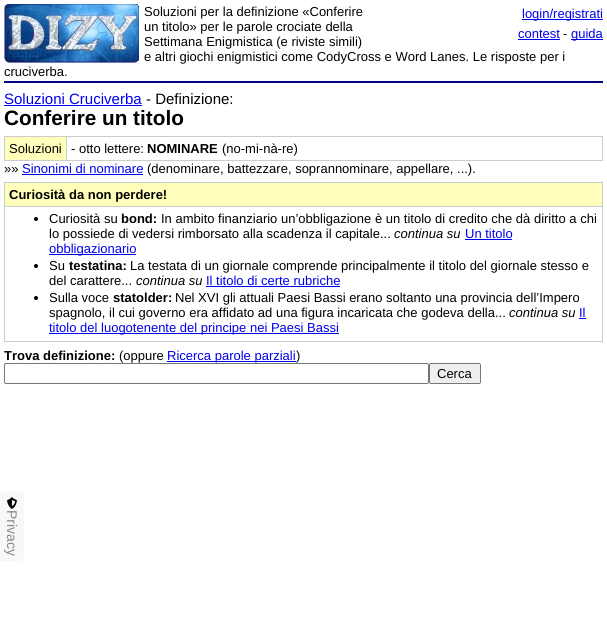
import math
import cairo


def round_path(ctx, x, y, w, h, r):
	ctx.new_sub_path()
	for i, (u, v) in enumerate([(x + w - r, y + h - r), (x + r, y + h - r), (x + r, y + r), (x + w - r, y + r)]):
		ctx.arc(u, v, r, i * math.pi / 2, (i + 1) * math.pi / 2)
	ctx.close_path()

def paste(ctx, path, x, y, w, h):
	ctx.save()
	ctx.set_source_surface(cairo.ImageSurface.create_from_png(path), x, y)
	ctx.rectangle(x, y, w, h)
	ctx.fill()
	ctx.restore()

def draw(ctx):
	ctx.set_source_rgb(1, 1, 1)
	ctx.paint()
	paste(ctx, 'media/1.png', 4, 4, 135, 59)
	ctx.select_font_face('Liberation Sans')
	ctx.set_font_size(13)
	ctx.set_source_rgb(0, 0, 0)
	for x, y, s in [
		(144, 16, 'Soluzioni per la definizione «Conferire'),
		(144, 31, 'un titolo» per le parole crociate della'),
		(144, 46, 'Settimana Enigmistica (e riviste simili)'),
		(144, 61, 'e altri giochi enigmistici come CodyCross e Word Lanes. Le risposte per i'),
		(4, 76, 'cruciverba.'),
	]:
		ctx.move_to(x, y)
		ctx.show_text(s)
	ctx.set_source_rgb(0, 0, 0.933)
	ctx.rectangle(522, 19, 81, 1)
	ctx.fill()
	ctx.move_to(522, 18)
	ctx.show_text('login/registrati')
	ctx.move_to(518, 38)
	ctx.show_text('contest')
	ctx.rectangle(518, 39, 42, 1)
	ctx.fill()
	ctx.set_source_rgb(0, 0, 0)
	ctx.move_to(563, 38)
	ctx.show_text('-')
	ctx.set_source_rgb(0, 0, 0.933)
	ctx.rectangle(571, 39, 32, 1)
	ctx.fill()
	ctx.move_to(571, 38)
	ctx.show_text('guida')
	ctx.set_source_rgb(0, 0, 0.502)
	ctx.rectangle(4, 81, 599, 2)
	ctx.fill()
	ctx.set_font_size(15)
	ctx.set_source_rgb(0, 0, 0.933)
	ctx.move_to(4, 104)
	ctx.show_text('Soluzioni Cruciverba')
	ctx.rectangle(4, 105, 138, 1)
	ctx.fill()
	ctx.set_source_rgb(0, 0, 0)
	ctx.move_to(146, 104)
	ctx.show_text('- Definizione:')
	ctx.select_font_face('Liberation Sans', cairo.FONT_SLANT_NORMAL, cairo.FONT_WEIGHT_BOLD)
	ctx.set_font_size(20.75)
	ctx.move_to(4, 125)
	ctx.show_text('Conferire un titolo')
	ctx.set_source_rgb(0.8, 0.8, 0.8)
	ctx.rectangle(4, 136, 599, 1)
	ctx.rectangle(602, 136, 1, 25)
	ctx.rectangle(4, 160, 599, 1)
	ctx.rectangle(4, 136, 1, 25)
	ctx.fill()
	ctx.set_source_rgb(1, 1, 0.733)
	ctx.rectangle(5, 137, 61, 23)
	ctx.fill()
	ctx.select_font_face('Liberation Sans')
	ctx.set_font_size(13)
	ctx.set_source_rgb(0, 0, 0)
	ctx.move_to(9, 153)
	ctx.show_text('Soluzioni')
	ctx.set_source_rgb(0.8, 0.8, 0.8)
	ctx.rectangle(66, 136, 1, 25)
	ctx.fill()
	ctx.set_source_rgb(0, 0, 0)
	ctx.move_to(71, 153)
	ctx.show_text('- otto lettere:')
	ctx.select_font_face('Liberation Sans', cairo.FONT_SLANT_NORMAL, cairo.FONT_WEIGHT_BOLD)
	ctx.move_to(147, 153)
	ctx.show_text('NOMINARE')
	ctx.select_font_face('Liberation Sans')
	ctx.move_to(222, 153)
	ctx.show_text('(no-mi-nà-re)')
	ctx.move_to(4, 173)
	ctx.show_text('»»')
	ctx.set_source_rgb(0, 0, 0.933)
	ctx.move_to(22, 173)
	ctx.show_text('Sinonimi di nominare')
	ctx.rectangle(22, 174, 121, 1)
	ctx.fill()
	ctx.set_source_rgb(0, 0, 0)
	ctx.move_to(147, 173)
	ctx.show_text('(denominare, battezzare, soprannominare, appellare, ...).')
	ctx.set_source_rgb(0.8, 0.8, 0.8)
	ctx.rectangle(4, 182, 599, 1)
	ctx.rectangle(602, 182, 1, 160)
	ctx.rectangle(4, 341, 599, 1)
	ctx.rectangle(4, 182, 1, 160)
	ctx.fill()
	ctx.set_source_rgb(1, 1, 0.733)
	ctx.rectangle(5, 183, 597, 23)
	ctx.fill()
	ctx.select_font_face('Liberation Sans', cairo.FONT_SLANT_NORMAL, cairo.FONT_WEIGHT_BOLD)
	ctx.set_source_rgb(0, 0, 0)
	ctx.move_to(9, 199)
	ctx.show_text('Curiosità da non perdere!')
	ctx.set_source_rgb(0.8, 0.8, 0.8)
	ctx.rectangle(4, 206, 599, 1)
	ctx.fill()
	ctx.set_source_rgb(0, 0, 0)
	ctx.arc(36, 219, 2, 0, 2 * math.pi)
	ctx.fill()
	ctx.select_font_face('Liberation Sans')
	ctx.move_to(49, 223)
	ctx.show_text('Curiosità su')
	ctx.select_font_face('Liberation Sans', cairo.FONT_SLANT_NORMAL, cairo.FONT_WEIGHT_BOLD)
	ctx.move_to(121, 223)
	ctx.show_text('bond:')
	ctx.select_font_face('Liberation Sans')
	ctx.move_to(161, 223)
	ctx.show_text('In ambito finanziario un’obbligazione è un titolo di credito che dà diritto a chi')
	ctx.move_to(49, 238)
	ctx.show_text('lo possiede di vedersi rimborsato alla scadenza il capitale...')
	ctx.select_font_face('Liberation Sans', cairo.FONT_SLANT_ITALIC)
	ctx.move_to(394, 238)
	ctx.show_text('continua su')
	ctx.select_font_face('Liberation Sans')
	ctx.set_source_rgb(0, 0, 0.933)
	ctx.move_to(465, 238)
	ctx.show_text('Un titolo')
	ctx.rectangle(465, 239, 47, 1)
	ctx.fill()
	ctx.rectangle(49, 254, 87, 1)
	ctx.fill()
	ctx.move_to(49, 253)
	ctx.show_text('obbligazionario')
	ctx.set_source_rgb(0, 0, 0)
	ctx.new_path()
	ctx.arc(36, 266, 2, 0, 2 * math.pi)
	ctx.fill()
	ctx.move_to(49, 270)
	ctx.show_text('Su')
	ctx.select_font_face('Liberation Sans', cairo.FONT_SLANT_NORMAL, cairo.FONT_WEIGHT_BOLD)
	ctx.move_to(69, 270)
	ctx.show_text('testatina:')
	ctx.select_font_face('Liberation Sans')
	ctx.move_to(130, 270)
	ctx.show_text('La testata di un giornale comprende principalmente il titolo del giornale stesso e')
	ctx.move_to(49, 285)
	ctx.show_text('del carattere...')
	ctx.select_font_face('Liberation Sans', cairo.FONT_SLANT_ITALIC)
	ctx.move_to(136, 285)
	ctx.show_text('continua su')
	ctx.select_font_face('Liberation Sans')
	ctx.set_source_rgb(0, 0, 0.933)
	ctx.move_to(206, 285)
	ctx.show_text('Il titolo di certe rubriche')
	ctx.rectangle(206, 286, 134, 1)
	ctx.fill()
	ctx.set_source_rgb(0, 0, 0)
	ctx.arc(36, 298, 2, 0, 2 * math.pi)
	ctx.fill()
	ctx.move_to(49, 302)
	ctx.show_text('Sulla voce')
	ctx.select_font_face('Liberation Sans', cairo.FONT_SLANT_NORMAL, cairo.FONT_WEIGHT_BOLD)
	ctx.move_to(113, 302)
	ctx.show_text('statolder:')
	ctx.select_font_face('Liberation Sans')
	ctx.move_to(175, 302)
	ctx.show_text('Nel XVI gli attuali Paesi Bassi erano soltanto una provincia dell’Impero')
	ctx.move_to(49, 317)
	ctx.show_text('spagnolo, il cui governo era affidato ad una figura incaricata che godeva della...')
	ctx.select_font_face('Liberation Sans', cairo.FONT_SLANT_ITALIC)
	ctx.move_to(509, 317)
	ctx.show_text('continua su')
	ctx.select_font_face('Liberation Sans')
	ctx.set_source_rgb(0, 0, 0.933)
	ctx.move_to(579, 317)
	ctx.show_text('Il')
	ctx.rectangle(579, 318, 7, 1)
	ctx.fill()
	ctx.rectangle(49, 333, 290, 1)
	ctx.fill()
	ctx.move_to(49, 332)
	ctx.show_text('titolo del luogotenente del principe nei Paesi Bassi')
	ctx.select_font_face('Liberation Sans', cairo.FONT_SLANT_NORMAL, cairo.FONT_WEIGHT_BOLD)
	ctx.set_source_rgb(0, 0, 0)
	ctx.move_to(4, 360)
	ctx.show_text('Trova definizione:')
	ctx.select_font_face('Liberation Sans')
	ctx.move_to(119, 360)
	ctx.show_text('(oppure')
	ctx.set_source_rgb(0, 0, 0.933)
	ctx.rectangle(167, 361, 129, 1)
	ctx.fill()
	ctx.move_to(167, 360)
	ctx.show_text('Ricerca parole parziali')
	ctx.set_source_rgb(0, 0, 0)
	ctx.move_to(296, 360)
	ctx.show_text(')')
	round_path(ctx, 4.5, 363.5, 424, 20, 1.5)
	ctx.set_source_rgb(0.463, 0.463, 0.463)
	ctx.set_line_width(1)
	ctx.stroke()
	ctx.set_source_rgb(0.937, 0.937, 0.937)
	round_path(ctx, 429.5, 363.5, 51, 20, 1.5)
	ctx.fill_preserve()
	ctx.set_source_rgb(0.463, 0.463, 0.463)
	ctx.stroke()
	ctx.set_source_rgb(0, 0, 0)
	ctx.move_to(437, 378)
	ctx.show_text('Cerca')
	ctx.set_source_rgb(0.969, 0.969, 0.969)
	ctx.new_path()
	ctx.move_to(3, 491)
	ctx.line_to(21, 491)
	ctx.curve_to(22.5, 491, 24, 492.5, 24, 494)
	ctx.line_to(24, 558)
	ctx.curve_to(24, 559.5, 22.5, 561, 21, 561)
	ctx.line_to(0, 561)
	ctx.line_to(0, 494)
	ctx.curve_to(0, 492.5, 1.5, 491, 3, 491)
	ctx.close_path()
	ctx.fill()
	paste(ctx, 'media/2.png', 7, 497, 10, 12)
	ctx.set_font_size(14)
	ctx.set_source_rgb(0.533, 0.533, 0.533)
	ctx.save()
	ctx.translate(7, 510)
	ctx.rotate(90 * math.pi / 180)
	ctx.move_to(0, 0)
	ctx.show_text('Privacy')
	ctx.restore()


surface = cairo.ImageSurface(cairo.FORMAT_RGB24, 607, 631)
ctx = cairo.Context(surface)
options = cairo.FontOptions()
options.set_hint_metrics(cairo.HINT_METRICS_OFF)
options.set_hint_style(cairo.HINT_STYLE_NONE)
ctx.set_font_options(options)
ctx.set_miter_limit(4)
draw(ctx)
surface.write_to_png('image.png')
